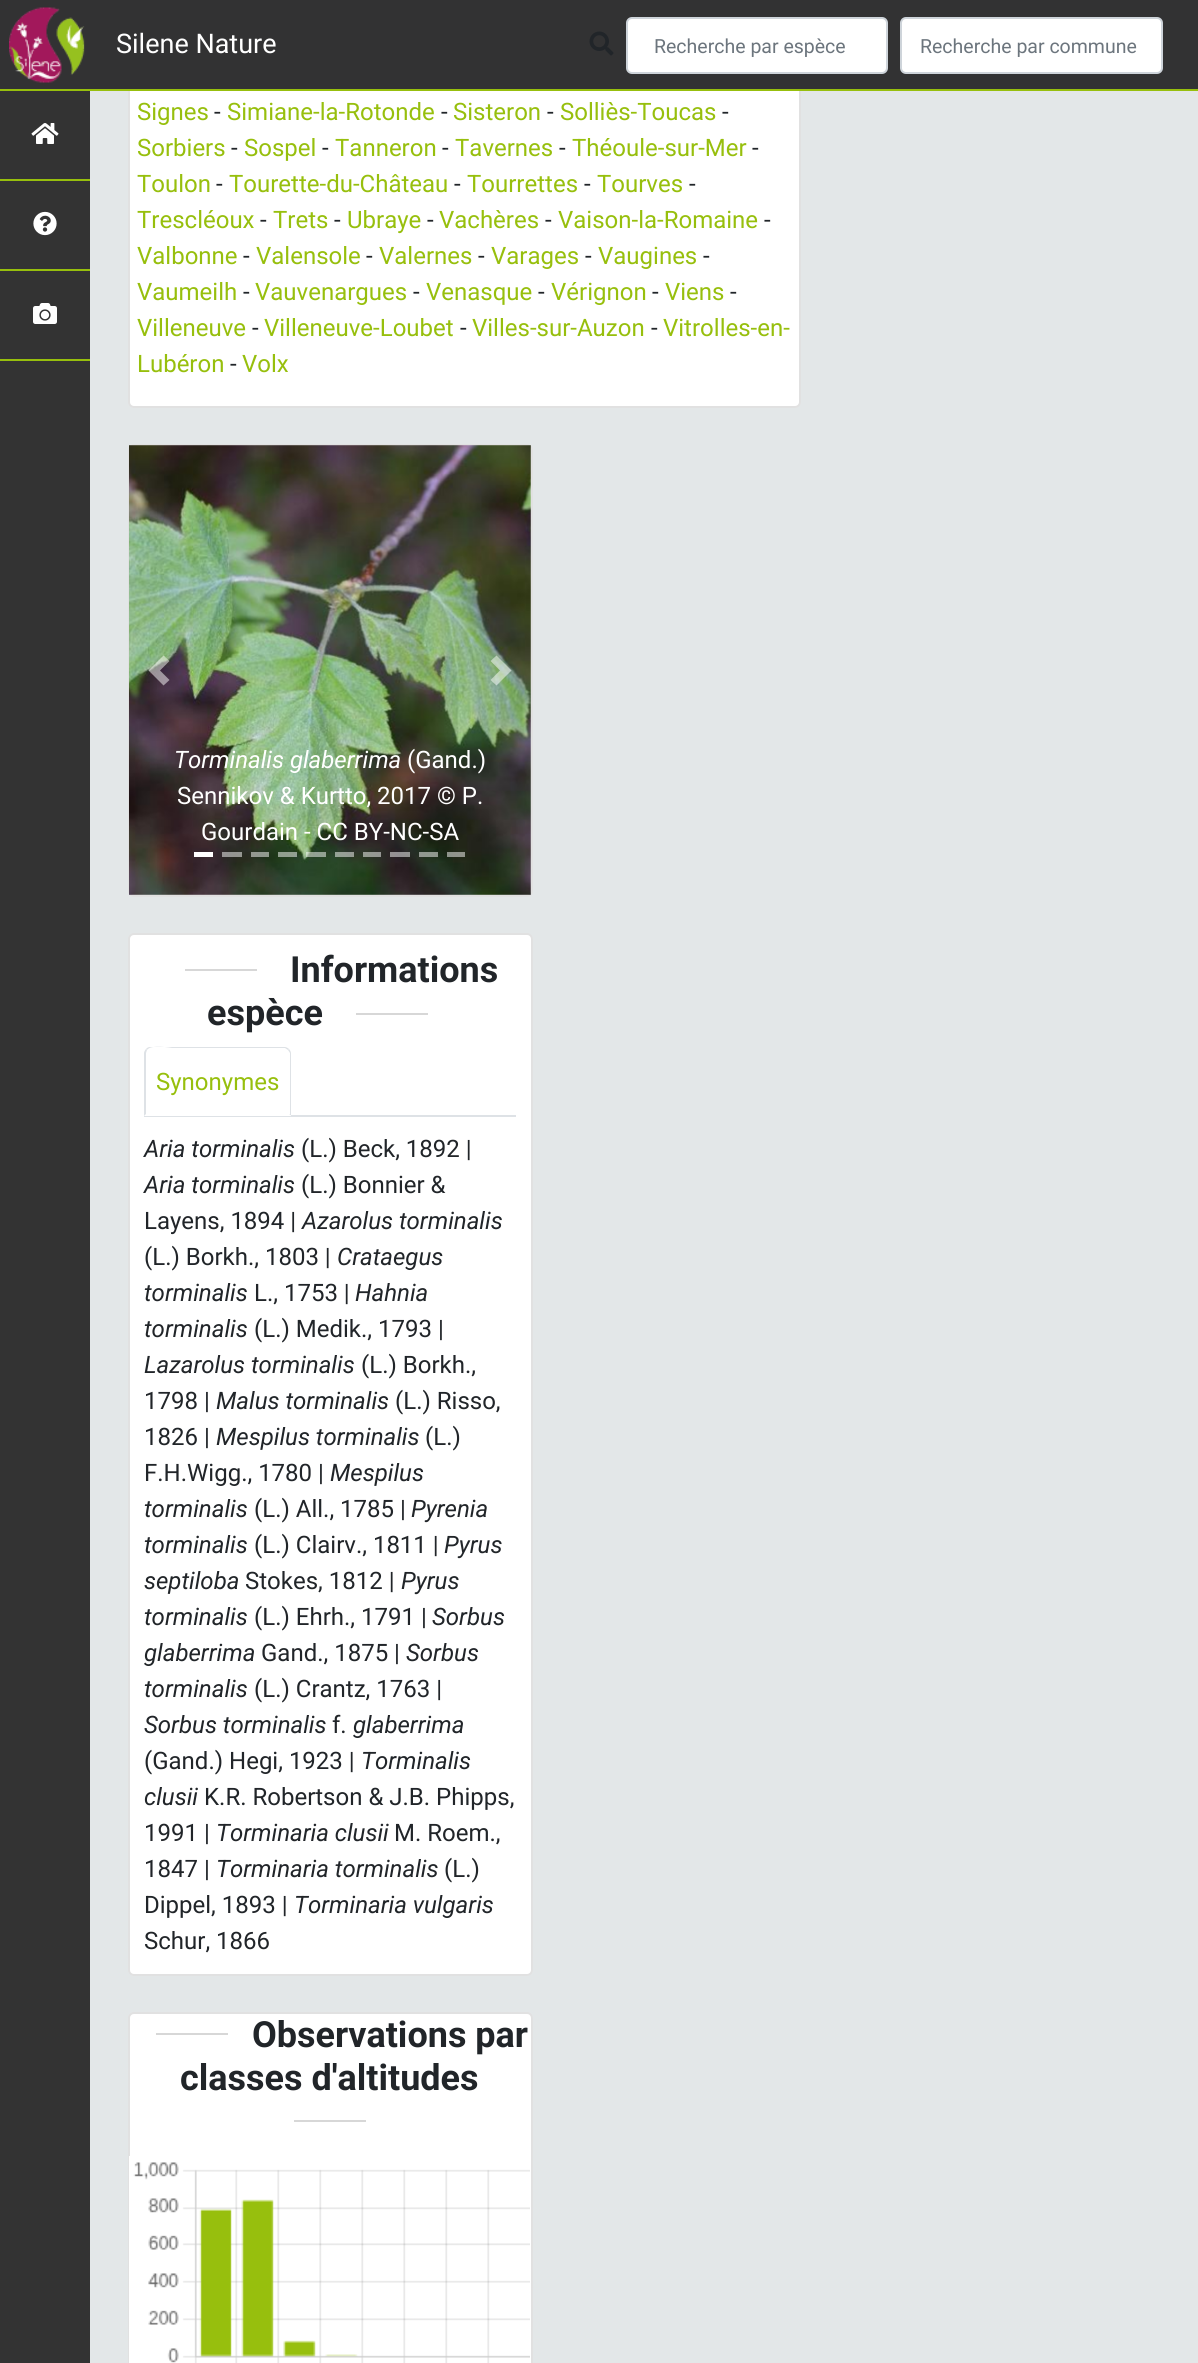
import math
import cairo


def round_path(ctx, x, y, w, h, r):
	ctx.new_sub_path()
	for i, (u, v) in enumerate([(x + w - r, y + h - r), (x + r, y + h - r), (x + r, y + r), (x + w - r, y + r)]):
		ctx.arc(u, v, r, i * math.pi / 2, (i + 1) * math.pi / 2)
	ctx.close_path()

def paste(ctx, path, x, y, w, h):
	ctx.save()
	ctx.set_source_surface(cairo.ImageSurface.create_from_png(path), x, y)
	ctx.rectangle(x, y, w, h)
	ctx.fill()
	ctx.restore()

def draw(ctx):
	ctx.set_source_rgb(0.89, 0.906, 0.91)
	ctx.paint()
	ctx.set_source_rgb(1, 1, 1)
	round_path(ctx, 128, -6, 673, 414, 6)
	ctx.fill()
	round_path(ctx, 129, -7, 671, 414, 5)
	ctx.set_source_rgba(0, 0, 0, 0.12)
	ctx.stroke()
	ctx.set_source_rgb(0.196, 0.196, 0.2)
	ctx.rectangle(0, 0, 1198, 89)
	ctx.fill()
	ctx.set_source_rgb(0.592, 0.749, 0.051)
	ctx.rectangle(0, 89, 1198, 2)
	ctx.fill()
	paste(ctx, 'media/1.png', 9, 7, 76, 76)
	ctx.select_font_face('Roboto')
	ctx.set_font_size(27)
	ctx.set_source_rgb(1, 1, 1)
	ctx.move_to(116, 53)
	ctx.show_text('Silene Nature')
	paste(ctx, 'media/2.png', 589, 31, 25, 25)
	round_path(ctx, 627, 18, 260, 55, 5)
	ctx.fill_preserve()
	ctx.set_source_rgb(0.808, 0.831, 0.855)
	ctx.stroke()
	ctx.set_font_size(19.5)
	ctx.set_source_rgb(0.424, 0.459, 0.49)
	ctx.move_to(654, 53)
	ctx.show_text('Recherche par espèce')
	ctx.set_source_rgb(1, 1, 1)
	round_path(ctx, 901, 18, 261, 55, 5)
	ctx.fill_preserve()
	ctx.set_source_rgb(0.808, 0.831, 0.855)
	ctx.stroke()
	ctx.set_source_rgb(0.424, 0.459, 0.49)
	ctx.move_to(920, 53)
	ctx.show_text('Recherche par commune')
	ctx.set_source_rgb(0.2, 0.2, 0.2)
	ctx.rectangle(0, 91, 90, 2272)
	ctx.fill()
	ctx.set_source_rgb(0.592, 0.749, 0.051)
	ctx.rectangle(0, 179, 90, 2)
	ctx.fill()
	paste(ctx, 'media/3.png', 31, 123, 28, 21)
	ctx.rectangle(0, 269, 90, 2)
	ctx.fill()
	paste(ctx, 'media/4.png', 33, 211, 24, 25)
	ctx.rectangle(0, 359, 90, 2)
	ctx.fill()
	paste(ctx, 'media/5.png', 33, 303, 24, 21)
	ctx.set_font_size(24)
	ctx.move_to(137, 120)
	ctx.show_text('Signes')
	ctx.set_source_rgb(0.129, 0.145, 0.161)
	ctx.move_to(214, 120)
	ctx.show_text('-')
	ctx.set_source_rgb(0.592, 0.749, 0.051)
	ctx.move_to(227, 120)
	ctx.show_text('Simiane-la-Rotonde')
	ctx.set_source_rgb(0.129, 0.145, 0.161)
	ctx.move_to(441, 120)
	ctx.show_text('-')
	ctx.set_source_rgb(0.592, 0.749, 0.051)
	ctx.move_to(453, 120)
	ctx.show_text('Sisteron')
	ctx.set_source_rgb(0.129, 0.145, 0.161)
	ctx.move_to(547, 120)
	ctx.show_text('-')
	ctx.set_source_rgb(0.592, 0.749, 0.051)
	ctx.move_to(560, 120)
	ctx.show_text('Solliès-Toucas')
	ctx.set_source_rgb(0.129, 0.145, 0.161)
	ctx.move_to(722, 120)
	ctx.show_text('-')
	ctx.set_source_rgb(0.592, 0.749, 0.051)
	ctx.move_to(137, 156)
	ctx.show_text('Sorbiers')
	ctx.set_source_rgb(0.129, 0.145, 0.161)
	ctx.move_to(231, 156)
	ctx.show_text('-')
	ctx.set_source_rgb(0.592, 0.749, 0.051)
	ctx.move_to(244, 156)
	ctx.show_text('Sospel')
	ctx.set_source_rgb(0.129, 0.145, 0.161)
	ctx.move_to(322, 156)
	ctx.show_text('-')
	ctx.set_source_rgb(0.592, 0.749, 0.051)
	ctx.move_to(335, 156)
	ctx.show_text('Tanneron')
	ctx.set_source_rgb(0.129, 0.145, 0.161)
	ctx.move_to(442, 156)
	ctx.show_text('-')
	ctx.set_source_rgb(0.592, 0.749, 0.051)
	ctx.move_to(455, 156)
	ctx.show_text('Tavernes')
	ctx.set_source_rgb(0.129, 0.145, 0.161)
	ctx.move_to(559, 156)
	ctx.show_text('-')
	ctx.set_source_rgb(0.592, 0.749, 0.051)
	ctx.move_to(572, 156)
	ctx.show_text('Théoule-sur-Mer')
	ctx.set_source_rgb(0.129, 0.145, 0.161)
	ctx.move_to(752, 156)
	ctx.show_text('-')
	ctx.set_source_rgb(0.592, 0.749, 0.051)
	ctx.move_to(137, 192)
	ctx.show_text('Toulon')
	ctx.set_source_rgb(0.129, 0.145, 0.161)
	ctx.move_to(216, 192)
	ctx.show_text('-')
	ctx.set_source_rgb(0.592, 0.749, 0.051)
	ctx.move_to(229, 192)
	ctx.show_text('Tourette-du-Château')
	ctx.set_source_rgb(0.129, 0.145, 0.161)
	ctx.move_to(454, 192)
	ctx.show_text('-')
	ctx.set_source_rgb(0.592, 0.749, 0.051)
	ctx.move_to(467, 192)
	ctx.show_text('Tourrettes')
	ctx.set_source_rgb(0.129, 0.145, 0.161)
	ctx.move_to(584, 192)
	ctx.show_text('-')
	ctx.set_source_rgb(0.592, 0.749, 0.051)
	ctx.move_to(597, 192)
	ctx.show_text('Tourves')
	ctx.set_source_rgb(0.129, 0.145, 0.161)
	ctx.move_to(689, 192)
	ctx.show_text('-')
	ctx.set_source_rgb(0.592, 0.749, 0.051)
	ctx.move_to(137, 228)
	ctx.show_text('Trescléoux')
	ctx.set_source_rgb(0.129, 0.145, 0.161)
	ctx.move_to(260, 228)
	ctx.show_text('-')
	ctx.set_source_rgb(0.592, 0.749, 0.051)
	ctx.move_to(273, 228)
	ctx.show_text('Trets')
	ctx.set_source_rgb(0.129, 0.145, 0.161)
	ctx.move_to(334, 228)
	ctx.show_text('-')
	ctx.set_source_rgb(0.592, 0.749, 0.051)
	ctx.move_to(347, 228)
	ctx.show_text('Ubraye')
	ctx.set_source_rgb(0.129, 0.145, 0.161)
	ctx.move_to(427, 228)
	ctx.show_text('-')
	ctx.set_source_rgb(0.592, 0.749, 0.051)
	ctx.move_to(439, 228)
	ctx.show_text('Vachères')
	ctx.set_source_rgb(0.129, 0.145, 0.161)
	ctx.move_to(545, 228)
	ctx.show_text('-')
	ctx.set_source_rgb(0.592, 0.749, 0.051)
	ctx.move_to(558, 228)
	ctx.show_text('Vaison-la-Romaine')
	ctx.set_source_rgb(0.129, 0.145, 0.161)
	ctx.move_to(764, 228)
	ctx.show_text('-')
	ctx.set_source_rgb(0.592, 0.749, 0.051)
	ctx.move_to(137, 264)
	ctx.show_text('Valbonne')
	ctx.set_source_rgb(0.129, 0.145, 0.161)
	ctx.move_to(243, 264)
	ctx.show_text('-')
	ctx.set_source_rgb(0.592, 0.749, 0.051)
	ctx.move_to(256, 264)
	ctx.show_text('Valensole')
	ctx.set_source_rgb(0.129, 0.145, 0.161)
	ctx.move_to(366, 264)
	ctx.show_text('-')
	ctx.set_source_rgb(0.592, 0.749, 0.051)
	ctx.move_to(379, 264)
	ctx.show_text('Valernes')
	ctx.set_source_rgb(0.129, 0.145, 0.161)
	ctx.move_to(478, 264)
	ctx.show_text('-')
	ctx.set_source_rgb(0.592, 0.749, 0.051)
	ctx.move_to(491, 264)
	ctx.show_text('Varages')
	ctx.set_source_rgb(0.129, 0.145, 0.161)
	ctx.move_to(585, 264)
	ctx.show_text('-')
	ctx.set_source_rgb(0.592, 0.749, 0.051)
	ctx.move_to(598, 264)
	ctx.show_text('Vaugines')
	ctx.set_source_rgb(0.129, 0.145, 0.161)
	ctx.move_to(703, 264)
	ctx.show_text('-')
	ctx.set_source_rgb(0.592, 0.749, 0.051)
	ctx.move_to(137, 300)
	ctx.show_text('Vaumeilh')
	ctx.set_source_rgb(0.129, 0.145, 0.161)
	ctx.move_to(243, 300)
	ctx.show_text('-')
	ctx.set_source_rgb(0.592, 0.749, 0.051)
	ctx.move_to(255, 300)
	ctx.show_text('Vauvenargues')
	ctx.set_source_rgb(0.129, 0.145, 0.161)
	ctx.move_to(413, 300)
	ctx.show_text('-')
	ctx.set_source_rgb(0.592, 0.749, 0.051)
	ctx.move_to(426, 300)
	ctx.show_text('Venasque')
	ctx.set_source_rgb(0.129, 0.145, 0.161)
	ctx.move_to(538, 300)
	ctx.show_text('-')
	ctx.set_source_rgb(0.592, 0.749, 0.051)
	ctx.move_to(551, 300)
	ctx.show_text('Vérignon')
	ctx.set_source_rgb(0.129, 0.145, 0.161)
	ctx.move_to(652, 300)
	ctx.show_text('-')
	ctx.set_source_rgb(0.592, 0.749, 0.051)
	ctx.move_to(665, 300)
	ctx.show_text('Viens')
	ctx.set_source_rgb(0.129, 0.145, 0.161)
	ctx.move_to(730, 300)
	ctx.show_text('-')
	ctx.set_source_rgb(0.592, 0.749, 0.051)
	ctx.move_to(137, 336)
	ctx.show_text('Villeneuve')
	ctx.set_source_rgb(0.129, 0.145, 0.161)
	ctx.move_to(252, 336)
	ctx.show_text('-')
	ctx.set_source_rgb(0.592, 0.749, 0.051)
	ctx.move_to(264, 336)
	ctx.show_text('Villeneuve-Loubet')
	ctx.set_source_rgb(0.129, 0.145, 0.161)
	ctx.move_to(460, 336)
	ctx.show_text('-')
	ctx.set_source_rgb(0.592, 0.749, 0.051)
	ctx.move_to(472, 336)
	ctx.show_text('Villes-sur-Auzon')
	ctx.set_source_rgb(0.129, 0.145, 0.161)
	ctx.move_to(651, 336)
	ctx.show_text('-')
	ctx.set_source_rgb(0.592, 0.749, 0.051)
	ctx.move_to(663, 336)
	ctx.show_text('Vitrolles-en-')
	ctx.move_to(137, 372)
	ctx.show_text('Lubéron')
	ctx.set_source_rgb(0.129, 0.145, 0.161)
	ctx.move_to(230, 372)
	ctx.show_text('-')
	ctx.set_source_rgb(0.592, 0.749, 0.051)
	ctx.move_to(242, 372)
	ctx.show_text('Volx')
	ctx.set_source_rgb(1, 1, 1)
	round_path(ctx, 128, 444, 405, 453, 6)
	ctx.fill()
	round_path(ctx, 129, 445, 403, 451, 5)
	ctx.set_source_rgba(0, 0, 0, 0.12)
	ctx.stroke()
	paste(ctx, 'media/6.png', 129, 445, 402, 450)
	ctx.set_source_rgba(1, 1, 1, 0.5)
	ctx.new_path()
	ctx.move_to(163.5, 655.5)
	ctx.line_to(148.5, 670.5)
	ctx.line_to(163.5, 685.5)
	ctx.line_to(169.5, 680)
	ctx.line_to(160, 670.5)
	ctx.line_to(169.5, 661)
	ctx.close_path()
	ctx.fill()
	ctx.new_path()
	ctx.move_to(496.5, 655.5)
	ctx.line_to(490.5, 661)
	ctx.line_to(500, 670.5)
	ctx.line_to(490.5, 680)
	ctx.line_to(496.5, 685.5)
	ctx.line_to(511.5, 670.5)
	ctx.close_path()
	ctx.fill()
	ctx.select_font_face('Roboto', cairo.FONT_SLANT_ITALIC)
	ctx.set_source_rgb(1, 1, 1)
	ctx.move_to(174, 768)
	ctx.show_text('Torminalis glaberrima')
	ctx.select_font_face('Roboto')
	for x, y, s in [
		(407, 768, '(Gand.)'),
		(177, 804, 'Sennikov & Kurtto, 2017 © P.'),
		(201, 840, 'Gourdain - CC BY-NC-SA'),
	]:
		ctx.move_to(x, y)
		ctx.show_text(s)
	ctx.rectangle(194, 852, 19, 5)
	ctx.fill()
	ctx.set_source_rgba(1, 1, 1, 0.5)
	ctx.rectangle(222, 852, 20, 5)
	ctx.fill()
	ctx.rectangle(251, 852, 18, 5)
	ctx.fill()
	ctx.rectangle(278, 852, 19, 5)
	ctx.fill()
	ctx.rectangle(306, 852, 20, 5)
	ctx.fill()
	ctx.rectangle(335, 852, 19, 5)
	ctx.fill()
	ctx.rectangle(363, 852, 18, 5)
	ctx.fill()
	ctx.rectangle(390, 852, 20, 5)
	ctx.fill()
	ctx.rectangle(419, 852, 19, 5)
	ctx.fill()
	ctx.rectangle(447, 852, 18, 5)
	ctx.fill()
	ctx.set_source_rgb(1, 1, 1)
	round_path(ctx, 128, 933, 405, 1043, 6)
	ctx.fill()
	round_path(ctx, 129, 934, 403, 1041, 5)
	ctx.set_source_rgba(0, 0, 0, 0.12)
	ctx.stroke()
	ctx.set_source_rgb(0.843, 0.843, 0.843)
	ctx.rectangle(185, 969, 72, 2)
	ctx.fill()
	ctx.select_font_face('Roboto', cairo.FONT_SLANT_NORMAL, cairo.FONT_WEIGHT_BOLD)
	ctx.set_font_size(36)
	ctx.set_source_rgb(0.129, 0.145, 0.161)
	ctx.move_to(290, 982)
	ctx.show_text('Informations')
	ctx.move_to(207, 1025)
	ctx.show_text('espèce')
	ctx.set_source_rgb(0.843, 0.843, 0.843)
	ctx.rectangle(356, 1013, 72, 2)
	ctx.fill()
	ctx.set_source_rgb(0.871, 0.886, 0.902)
	ctx.rectangle(144, 1115, 372, 2)
	ctx.fill()
	ctx.set_source_rgb(1, 1, 1)
	ctx.new_path()
	ctx.move_to(150, 1047)
	ctx.line_to(285, 1047)
	ctx.curve_to(288.5, 1047, 291, 1049.5, 291, 1053)
	ctx.line_to(291, 1116)
	ctx.line_to(144, 1116)
	ctx.line_to(144, 1053)
	ctx.curve_to(144, 1049.5, 146.5, 1047, 150, 1047)
	ctx.close_path()
	ctx.fill()
	ctx.set_source_rgb(0.871, 0.886, 0.902)
	ctx.new_path()
	ctx.move_to(150, 1047)
	ctx.curve_to(148, 1047, 147, 1048, 146, 1049)
	ctx.line_to(147, 1050)
	ctx.curve_to(151, 1044, 172, 1048, 172, 1048)
	ctx.line_to(285, 1048)
	ctx.line_to(288, 1050)
	ctx.line_to(289, 1049)
	ctx.curve_to(288, 1048, 286, 1047, 285, 1047)
	ctx.close_path()
	ctx.fill()
	ctx.new_path()
	ctx.move_to(291, 1116)
	ctx.line_to(291, 1053)
	ctx.curve_to(291, 1052, 290, 1050, 289, 1049)
	ctx.line_to(288, 1050)
	ctx.line_to(290, 1053)
	ctx.line_to(290, 1114)
	ctx.line_to(289, 1114)
	ctx.close_path()
	ctx.fill()
	ctx.set_source_rgb(1, 1, 1)
	ctx.new_path()
	ctx.move_to(291, 1116)
	ctx.line_to(289, 1114)
	ctx.line_to(146, 1114)
	ctx.line_to(144, 1116)
	ctx.close_path()
	ctx.fill()
	ctx.set_source_rgb(0.871, 0.886, 0.902)
	ctx.new_path()
	ctx.move_to(144, 1116)
	ctx.line_to(146, 1114)
	ctx.line_to(146, 1053)
	ctx.line_to(147, 1050)
	ctx.line_to(146, 1049)
	ctx.curve_to(145, 1050, 144, 1052, 144, 1053)
	ctx.close_path()
	ctx.fill()
	ctx.select_font_face('Roboto')
	ctx.set_font_size(24)
	ctx.set_source_rgb(0.592, 0.749, 0.051)
	ctx.move_to(156, 1090)
	ctx.show_text('Synonymes')
	ctx.select_font_face('Roboto', cairo.FONT_SLANT_ITALIC)
	ctx.set_source_rgb(0.129, 0.145, 0.161)
	ctx.move_to(144, 1157)
	ctx.show_text('Aria torminalis')
	ctx.select_font_face('Roboto')
	ctx.move_to(301, 1157)
	ctx.show_text('(L.) Beck, 1892 |')
	ctx.select_font_face('Roboto', cairo.FONT_SLANT_ITALIC)
	ctx.move_to(144, 1193)
	ctx.show_text('Aria torminalis')
	ctx.select_font_face('Roboto')
	ctx.move_to(301, 1193)
	ctx.show_text('(L.) Bonnier &')
	ctx.move_to(144, 1229)
	ctx.show_text('Layens, 1894 |')
	ctx.select_font_face('Roboto', cairo.FONT_SLANT_ITALIC)
	ctx.move_to(302, 1229)
	ctx.show_text('Azarolus torminalis')
	ctx.select_font_face('Roboto')
	ctx.move_to(144, 1265)
	ctx.show_text('(L.) Borkh., 1803 |')
	ctx.select_font_face('Roboto', cairo.FONT_SLANT_ITALIC)
	ctx.move_to(337, 1265)
	ctx.show_text('Crataegus')
	ctx.move_to(144, 1301)
	ctx.show_text('torminalis')
	ctx.select_font_face('Roboto')
	ctx.move_to(254, 1301)
	ctx.show_text('L., 1753 |')
	ctx.select_font_face('Roboto', cairo.FONT_SLANT_ITALIC)
	ctx.move_to(355, 1301)
	ctx.show_text('Hahnia')
	ctx.move_to(144, 1337)
	ctx.show_text('torminalis')
	ctx.select_font_face('Roboto')
	ctx.move_to(254, 1337)
	ctx.show_text('(L.) Medik., 1793 |')
	ctx.select_font_face('Roboto', cairo.FONT_SLANT_ITALIC)
	ctx.move_to(144, 1373)
	ctx.show_text('Lazarolus torminalis')
	ctx.select_font_face('Roboto')
	ctx.move_to(361, 1373)
	ctx.show_text('(L.) Borkh.,')
	ctx.move_to(144, 1409)
	ctx.show_text('1798 |')
	ctx.select_font_face('Roboto', cairo.FONT_SLANT_ITALIC)
	ctx.move_to(216, 1409)
	ctx.show_text('Malus torminalis')
	ctx.select_font_face('Roboto')
	ctx.move_to(395, 1409)
	ctx.show_text('(L.) Risso,')
	ctx.move_to(144, 1445)
	ctx.show_text('1826 |')
	ctx.select_font_face('Roboto', cairo.FONT_SLANT_ITALIC)
	ctx.move_to(216, 1445)
	ctx.show_text('Mespilus torminalis')
	ctx.select_font_face('Roboto')
	ctx.move_to(425, 1445)
	ctx.show_text('(L.)')
	ctx.move_to(144, 1481)
	ctx.show_text('F.H.Wigg., 1780 |')
	ctx.select_font_face('Roboto', cairo.FONT_SLANT_ITALIC)
	ctx.move_to(330, 1481)
	ctx.show_text('Mespilus')
	ctx.move_to(144, 1517)
	ctx.show_text('torminalis')
	ctx.select_font_face('Roboto')
	ctx.move_to(254, 1517)
	ctx.show_text('(L.) All., 1785 |')
	ctx.select_font_face('Roboto', cairo.FONT_SLANT_ITALIC)
	ctx.move_to(411, 1517)
	ctx.show_text('Pyrenia')
	ctx.move_to(144, 1553)
	ctx.show_text('torminalis')
	ctx.select_font_face('Roboto')
	ctx.move_to(254, 1553)
	ctx.show_text('(L.) Clairv., 1811 |')
	ctx.select_font_face('Roboto', cairo.FONT_SLANT_ITALIC)
	ctx.move_to(444, 1553)
	ctx.show_text('Pyrus')
	ctx.move_to(144, 1589)
	ctx.show_text('septiloba')
	ctx.select_font_face('Roboto')
	ctx.move_to(245, 1589)
	ctx.show_text('Stokes, 1812 |')
	ctx.select_font_face('Roboto', cairo.FONT_SLANT_ITALIC)
	ctx.move_to(401, 1589)
	ctx.show_text('Pyrus')
	ctx.move_to(144, 1625)
	ctx.show_text('torminalis')
	ctx.select_font_face('Roboto')
	ctx.move_to(254, 1625)
	ctx.show_text('(L.) Ehrh., 1791 |')
	ctx.select_font_face('Roboto', cairo.FONT_SLANT_ITALIC)
	ctx.move_to(432, 1625)
	ctx.show_text('Sorbus')
	ctx.move_to(144, 1661)
	ctx.show_text('glaberrima')
	ctx.select_font_face('Roboto')
	ctx.move_to(261, 1661)
	ctx.show_text('Gand., 1875 |')
	ctx.select_font_face('Roboto', cairo.FONT_SLANT_ITALIC)
	ctx.move_to(406, 1661)
	ctx.show_text('Sorbus')
	ctx.move_to(144, 1697)
	ctx.show_text('torminalis')
	ctx.select_font_face('Roboto')
	ctx.move_to(254, 1697)
	ctx.show_text('(L.) Crantz, 1763 |')
	ctx.select_font_face('Roboto', cairo.FONT_SLANT_ITALIC)
	ctx.move_to(144, 1733)
	ctx.show_text('Sorbus torminalis')
	ctx.select_font_face('Roboto')
	ctx.move_to(332, 1733)
	ctx.show_text('f.')
	ctx.select_font_face('Roboto', cairo.FONT_SLANT_ITALIC)
	ctx.move_to(353, 1733)
	ctx.show_text('glaberrima')
	ctx.select_font_face('Roboto')
	ctx.move_to(144, 1769)
	ctx.show_text('(Gand.) Hegi, 1923 |')
	ctx.select_font_face('Roboto', cairo.FONT_SLANT_ITALIC)
	ctx.move_to(361, 1769)
	ctx.show_text('Torminalis')
	ctx.move_to(144, 1805)
	ctx.show_text('clusii')
	ctx.select_font_face('Roboto')
	ctx.move_to(204, 1805)
	ctx.show_text('K.R. Robertson & J.B. Phipps,')
	ctx.move_to(144, 1841)
	ctx.show_text('1991 |')
	ctx.select_font_face('Roboto', cairo.FONT_SLANT_ITALIC)
	ctx.move_to(216, 1841)
	ctx.show_text('Torminaria clusii')
	ctx.select_font_face('Roboto')
	ctx.move_to(394, 1841)
	ctx.show_text('M. Roem.,')
	ctx.move_to(144, 1877)
	ctx.show_text('1847 |')
	ctx.select_font_face('Roboto', cairo.FONT_SLANT_ITALIC)
	ctx.move_to(216, 1877)
	ctx.show_text('Torminaria torminalis')
	ctx.select_font_face('Roboto')
	ctx.move_to(444, 1877)
	ctx.show_text('(L.)')
	ctx.move_to(144, 1913)
	ctx.show_text('Dippel, 1893 |')
	ctx.select_font_face('Roboto', cairo.FONT_SLANT_ITALIC)
	ctx.move_to(294, 1913)
	ctx.show_text('Torminaria vulgaris')
	ctx.select_font_face('Roboto')
	ctx.move_to(144, 1949)
	ctx.show_text('Schur, 1866')
	ctx.set_source_rgb(1, 1, 1)
	round_path(ctx, 128, 2012, 405, 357, 6)
	ctx.fill()
	round_path(ctx, 129, 2013, 403, 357, 5)
	ctx.set_source_rgba(0, 0, 0, 0.12)
	ctx.stroke()
	ctx.set_source_rgb(0.843, 0.843, 0.843)
	ctx.rectangle(156, 2033, 72, 2)
	ctx.fill()
	ctx.select_font_face('Roboto', cairo.FONT_SLANT_NORMAL, cairo.FONT_WEIGHT_BOLD)
	ctx.set_font_size(36)
	ctx.set_source_rgb(0.129, 0.145, 0.161)
	ctx.move_to(252, 2047)
	ctx.show_text('Observations par')
	ctx.move_to(180, 2090)
	ctx.show_text('classes d\'altitudes')
	ctx.set_source_rgb(0.843, 0.843, 0.843)
	ctx.rectangle(294, 2120, 72, 2)
	ctx.fill()
	ctx.set_source_rgb(1, 1, 1)
	ctx.rectangle(129, 2156, 1, 207)
	ctx.fill()
	paste(ctx, 'media/7.png', 133, 2162, 397, 201)


surface = cairo.ImageSurface(cairo.FORMAT_RGB24, 1198, 2363)
ctx = cairo.Context(surface)
options = cairo.FontOptions()
options.set_hint_metrics(cairo.HINT_METRICS_OFF)
options.set_hint_style(cairo.HINT_STYLE_NONE)
ctx.set_font_options(options)
ctx.set_miter_limit(4)
draw(ctx)
surface.write_to_png('image.png')
